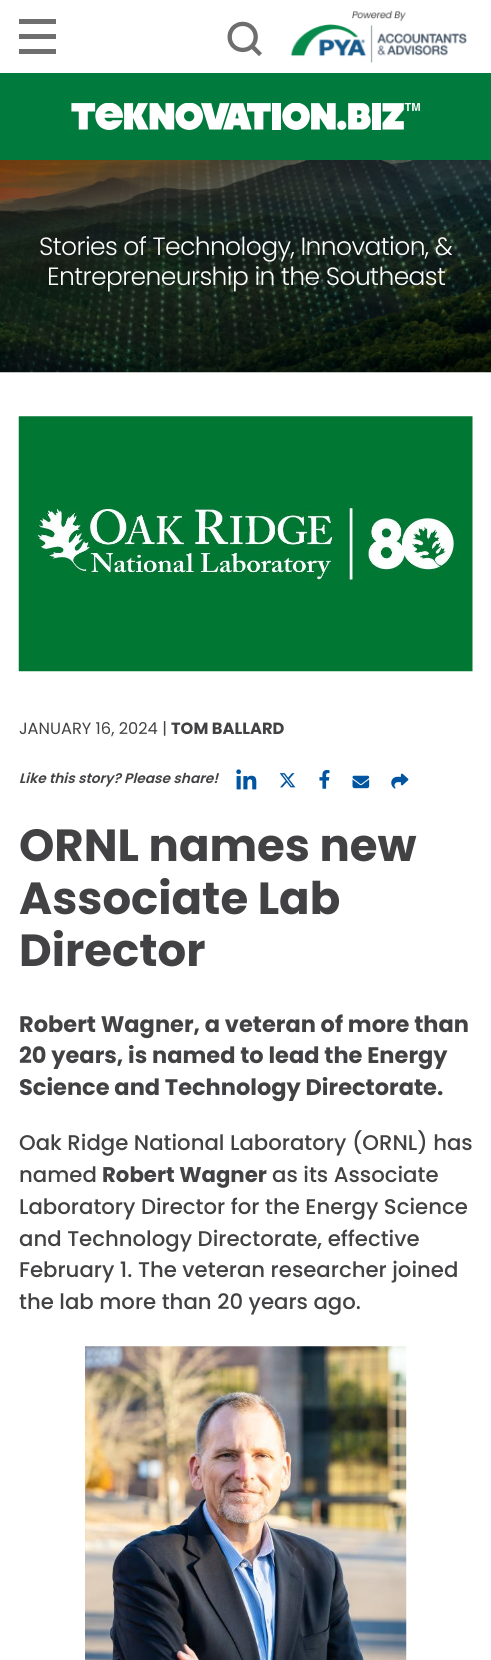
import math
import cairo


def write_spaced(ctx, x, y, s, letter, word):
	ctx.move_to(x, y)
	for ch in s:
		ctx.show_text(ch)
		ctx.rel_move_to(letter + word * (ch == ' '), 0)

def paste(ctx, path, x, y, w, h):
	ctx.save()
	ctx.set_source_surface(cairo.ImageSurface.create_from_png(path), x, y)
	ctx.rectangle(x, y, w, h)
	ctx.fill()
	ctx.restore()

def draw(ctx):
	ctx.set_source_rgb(1, 1, 1)
	ctx.paint()
	ctx.set_source_rgb(0.431, 0.431, 0.431)
	ctx.rectangle(19, 19, 37, 5)
	ctx.rectangle(19, 34, 37, 5)
	ctx.rectangle(19, 49, 37, 5)
	ctx.fill()
	paste(ctx, 'media/1.png', 227, 21, 35, 35)
	paste(ctx, 'media/2.png', 290, 10, 177, 53)
	ctx.set_source_rgb(0, 0.478, 0.239)
	ctx.rectangle(0, 73, 491, 87)
	ctx.fill()
	paste(ctx, 'media/3.png', 71, 103, 349, 27)
	paste(ctx, 'media/4.png', 0, 160, 491, 213)
	ctx.select_font_face('Poppins Light')
	ctx.set_font_size(25)
	ctx.set_source_rgb(1, 1, 1)
	write_spaced(ctx, 39, 255, 'Stories of Technology, Innovation, &', -0.6, 0)
	write_spaced(ctx, 47, 285, 'Entrepreneurship in the Southeast', -0.6, 0)
	paste(ctx, 'media/5.png', 18, 416, 455, 256)
	ctx.select_font_face('Poppins')
	ctx.set_font_size(16.25)
	ctx.set_source_rgb(0.259, 0.255, 0.263)
	ctx.move_to(19, 734)
	ctx.show_text('JANUARY 16, 2024 |')
	ctx.select_font_face('Poppins', cairo.FONT_SLANT_NORMAL, cairo.FONT_WEIGHT_BOLD)
	ctx.move_to(171, 734)
	ctx.show_text('TOM BALLARD')
	ctx.select_font_face('Poppins SemiBold', cairo.FONT_SLANT_ITALIC)
	ctx.set_font_size(13.75)
	ctx.move_to(19, 783)
	ctx.show_text('Like this story? Please share!')
	paste(ctx, 'media/6.png', 236, 769, 21, 21)
	paste(ctx, 'media/7.png', 279, 773, 17, 15)
	paste(ctx, 'media/8.png', 319, 770, 11, 19)
	paste(ctx, 'media/9.png', 352, 775, 18, 14)
	paste(ctx, 'media/10.png', 391, 773, 18, 16)
	ctx.select_font_face('Poppins', cairo.FONT_SLANT_NORMAL, cairo.FONT_WEIGHT_BOLD)
	ctx.set_font_size(45)
	for x, y, s in [
		(19, 861, 'ORNL names new'),
		(19, 914, 'Associate Lab'),
		(19, 966, 'Director'),
	]:
		ctx.move_to(x, y)
		ctx.show_text(s)
	ctx.set_font_size(22.5)
	for x, y, s in [
		(19, 1032, 'Robert Wagner, a veteran of more than'),
		(19, 1063, '20 years, is named to lead the Energy'),
		(19, 1095, 'Science and Technology Directorate.'),
	]:
		ctx.move_to(x, y)
		ctx.show_text(s)
	ctx.select_font_face('Poppins Medium')
	ctx.set_font_size(21.25)
	ctx.move_to(19, 1150)
	ctx.show_text('Oak Ridge National Laboratory (ORNL) has')
	ctx.move_to(19, 1182)
	ctx.show_text('named')
	ctx.select_font_face('Poppins', cairo.FONT_SLANT_NORMAL, cairo.FONT_WEIGHT_BOLD)
	ctx.move_to(102, 1182)
	ctx.show_text('Robert Wagner')
	ctx.select_font_face('Poppins Medium')
	for x, y, s in [
		(272, 1182, 'as its Associate'),
		(19, 1214, 'Laboratory Director for the Energy Science'),
		(19, 1246, 'and Technology Directorate, effective'),
		(19, 1277, 'February 1. The veteran researcher joined'),
		(19, 1309, 'the lab more than 20 years ago.'),
	]:
		ctx.move_to(x, y)
		ctx.show_text(s)
	paste(ctx, 'media/11.png', 85, 1346, 322, 314)


surface = cairo.ImageSurface(cairo.FORMAT_RGB24, 491, 1660)
ctx = cairo.Context(surface)
options = cairo.FontOptions()
options.set_hint_metrics(cairo.HINT_METRICS_OFF)
options.set_hint_style(cairo.HINT_STYLE_NONE)
ctx.set_font_options(options)
ctx.set_miter_limit(4)
draw(ctx)
surface.write_to_png('image.png')
